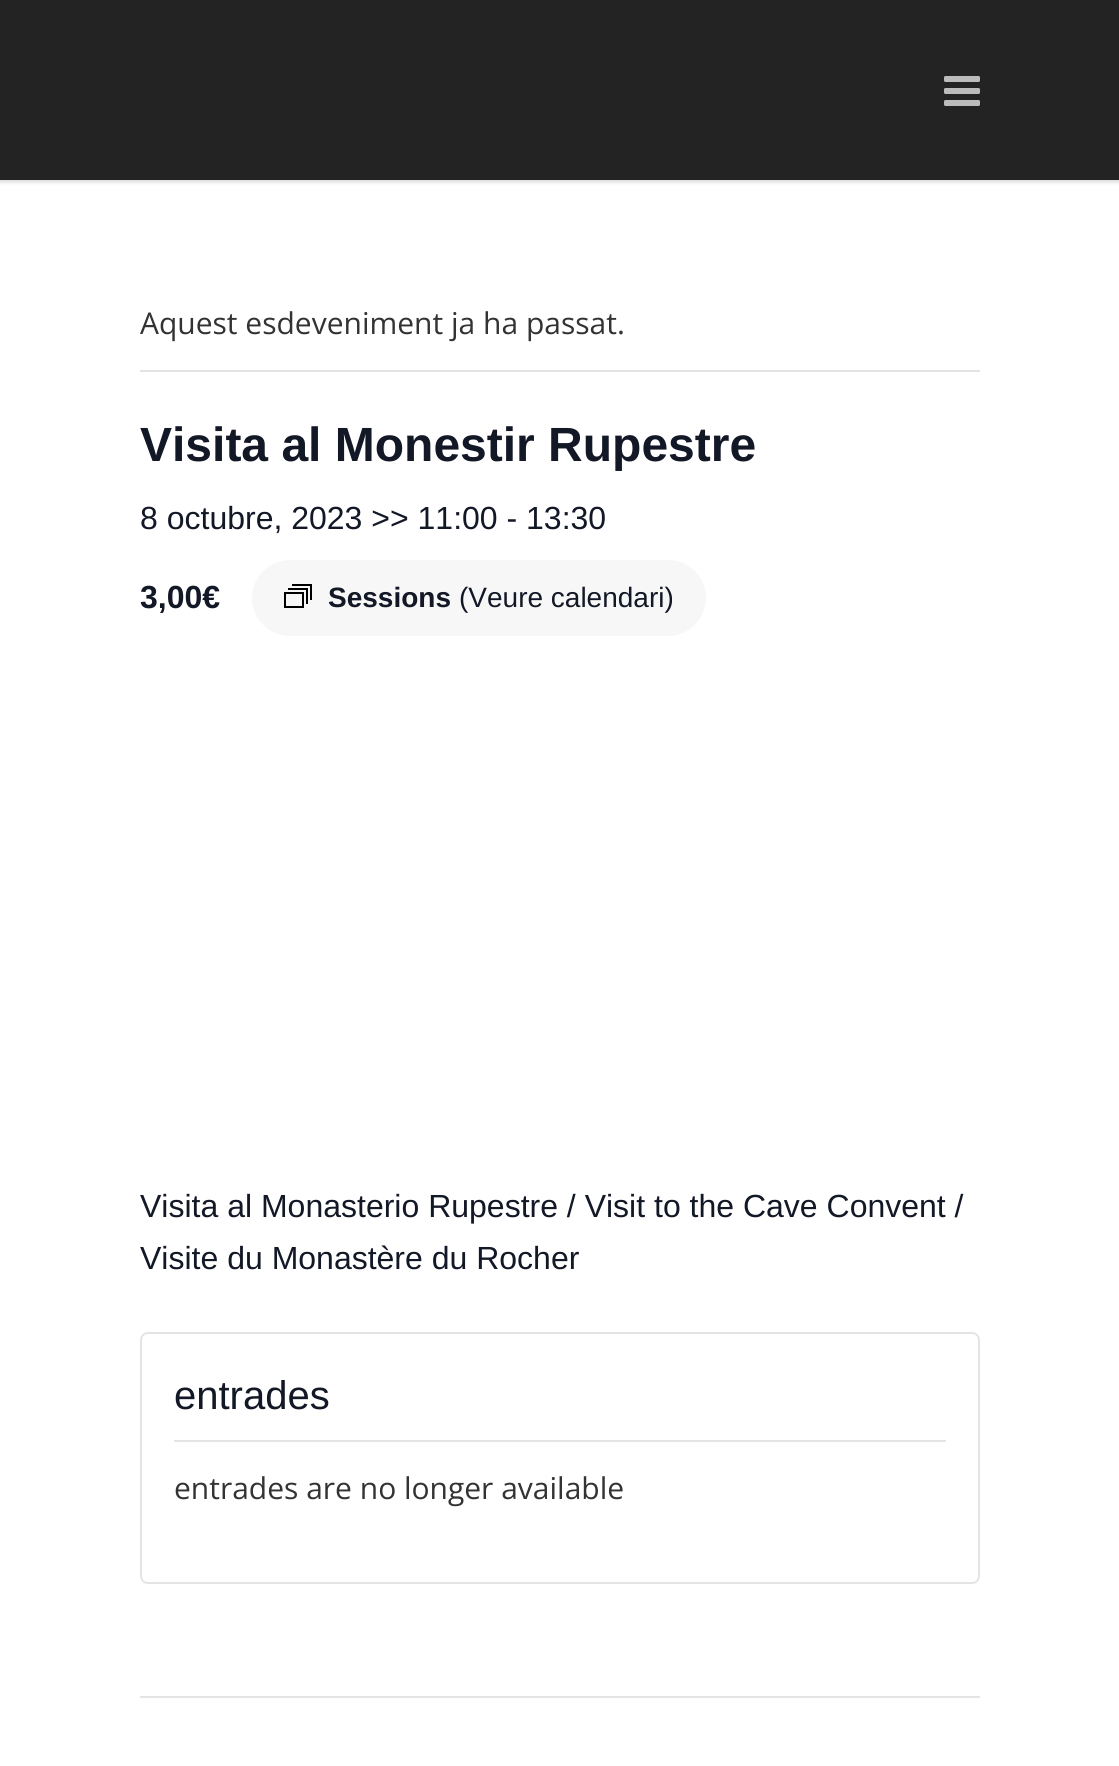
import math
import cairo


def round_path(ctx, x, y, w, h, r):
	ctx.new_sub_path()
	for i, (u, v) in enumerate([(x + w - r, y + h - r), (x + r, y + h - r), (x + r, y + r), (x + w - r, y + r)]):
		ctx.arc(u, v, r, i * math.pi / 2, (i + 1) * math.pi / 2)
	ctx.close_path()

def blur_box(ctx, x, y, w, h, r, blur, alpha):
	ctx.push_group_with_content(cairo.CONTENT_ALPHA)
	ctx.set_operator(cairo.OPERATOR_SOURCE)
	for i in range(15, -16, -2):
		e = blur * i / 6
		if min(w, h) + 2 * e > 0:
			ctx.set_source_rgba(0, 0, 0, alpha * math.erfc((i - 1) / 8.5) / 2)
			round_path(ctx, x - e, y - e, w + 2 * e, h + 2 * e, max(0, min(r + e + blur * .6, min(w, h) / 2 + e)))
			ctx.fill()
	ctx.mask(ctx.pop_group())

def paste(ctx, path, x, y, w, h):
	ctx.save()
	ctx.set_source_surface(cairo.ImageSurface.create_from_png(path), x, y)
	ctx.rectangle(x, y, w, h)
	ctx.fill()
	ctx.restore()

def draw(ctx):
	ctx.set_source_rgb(1, 1, 1)
	ctx.paint()
	ctx.set_source_rgb(0, 0, 0)
	blur_box(ctx, -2, -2, 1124, 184, 0, 2, 0.16)
	ctx.set_source_rgb(0.137, 0.137, 0.137)
	ctx.rectangle(0, 0, 1119, 180)
	ctx.fill()
	paste(ctx, 'media/1.png', 944, 76, 36, 30)
	ctx.set_source_rgb(0.894, 0.894, 0.894)
	ctx.rectangle(140, 370, 840, 2)
	ctx.fill()
	ctx.select_font_face('Open Sans')
	ctx.set_font_size(30)
	ctx.set_source_rgb(0.2, 0.2, 0.2)
	ctx.move_to(140, 334)
	ctx.show_text('Aquest esdeveniment ja ha passat.')
	ctx.select_font_face('Liberation Sans', cairo.FONT_SLANT_NORMAL, cairo.FONT_WEIGHT_BOLD)
	ctx.set_font_size(48)
	ctx.set_source_rgb(0.078, 0.094, 0.153)
	ctx.move_to(140, 461)
	ctx.show_text('Visita al Monestir Rupestre')
	ctx.select_font_face('Liberation Sans')
	ctx.set_font_size(32)
	ctx.move_to(140, 529)
	ctx.show_text('8 octubre, 2023 >> 11:00 - 13:30')
	ctx.select_font_face('Liberation Sans', cairo.FONT_SLANT_NORMAL, cairo.FONT_WEIGHT_BOLD)
	ctx.move_to(140, 608)
	ctx.show_text('3,00€')
	ctx.set_source_rgb(0.969, 0.965, 0.965)
	round_path(ctx, 252, 560, 454, 76, 38)
	ctx.fill()
	ctx.rectangle(285, 593, 18, 14)
	ctx.set_source_rgb(0, 0, 0)
	ctx.stroke()
	ctx.new_path()
	ctx.move_to(288, 589)
	ctx.line_to(307, 589)
	ctx.line_to(307, 604)
	ctx.move_to(292, 585)
	ctx.line_to(311, 585)
	ctx.line_to(311, 600)
	ctx.stroke()
	ctx.set_font_size(28)
	ctx.set_source_rgb(0.078, 0.094, 0.153)
	ctx.move_to(328, 607)
	ctx.show_text('Sessions')
	ctx.select_font_face('Liberation Sans')
	ctx.move_to(459, 607)
	ctx.show_text('(Veure calendari)')
	ctx.set_font_size(32)
	ctx.move_to(140, 1217)
	ctx.show_text('Visita al Monasterio Rupestre / Visit to the Cave Convent /')
	ctx.move_to(140, 1269)
	ctx.show_text('Visite du Monastère du Rocher')
	round_path(ctx, 141, 1333, 838, 250, 7)
	ctx.set_source_rgb(0.894, 0.894, 0.894)
	ctx.stroke()
	ctx.set_font_size(40)
	ctx.set_source_rgb(0.078, 0.094, 0.153)
	ctx.move_to(174, 1409)
	ctx.show_text('entrades')
	ctx.set_source_rgb(0.894, 0.894, 0.894)
	ctx.rectangle(174, 1440, 772, 2)
	ctx.fill()
	ctx.select_font_face('Open Sans')
	ctx.set_font_size(30)
	ctx.set_source_rgb(0.2, 0.2, 0.2)
	ctx.move_to(174, 1499)
	ctx.show_text('entrades are no longer available')
	ctx.set_source_rgb(0.894, 0.894, 0.894)
	ctx.rectangle(140, 1696, 840, 2)
	ctx.fill()


surface = cairo.ImageSurface(cairo.FORMAT_RGB24, 1119, 1766)
ctx = cairo.Context(surface)
options = cairo.FontOptions()
options.set_hint_metrics(cairo.HINT_METRICS_OFF)
options.set_hint_style(cairo.HINT_STYLE_NONE)
ctx.set_font_options(options)
ctx.set_miter_limit(4)
draw(ctx)
surface.write_to_png('image.png')
